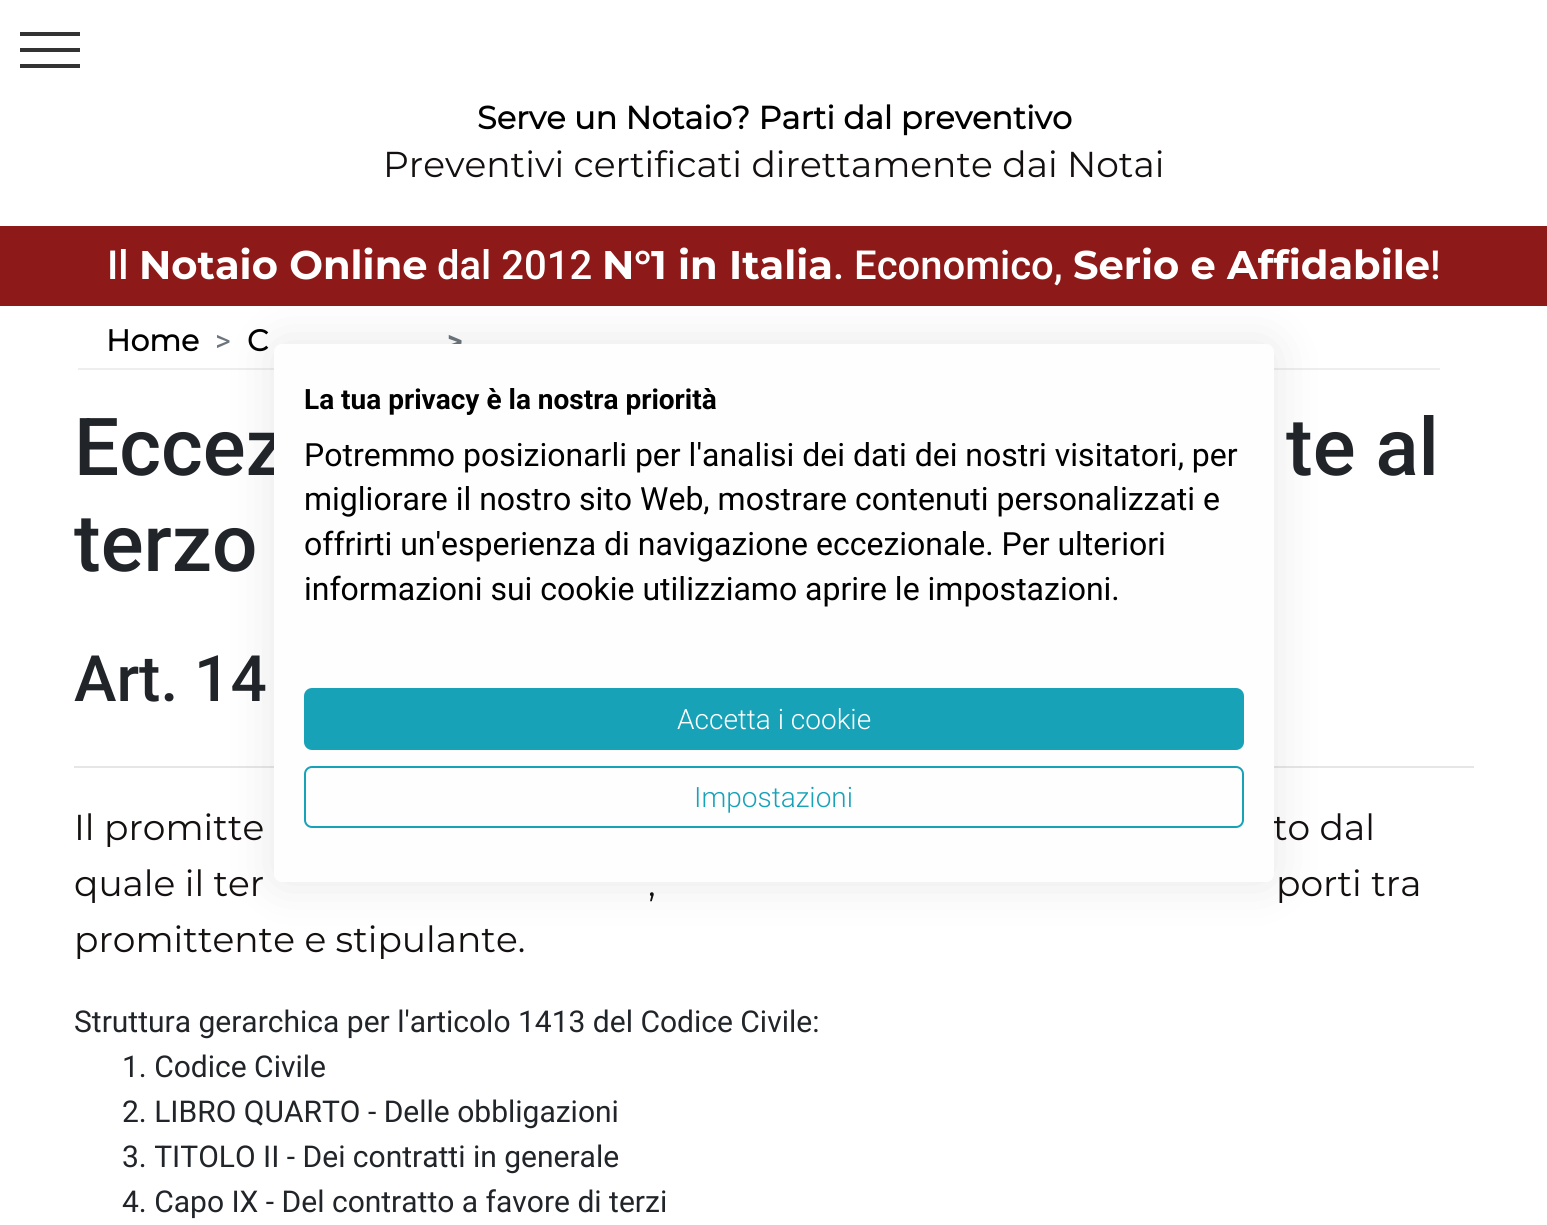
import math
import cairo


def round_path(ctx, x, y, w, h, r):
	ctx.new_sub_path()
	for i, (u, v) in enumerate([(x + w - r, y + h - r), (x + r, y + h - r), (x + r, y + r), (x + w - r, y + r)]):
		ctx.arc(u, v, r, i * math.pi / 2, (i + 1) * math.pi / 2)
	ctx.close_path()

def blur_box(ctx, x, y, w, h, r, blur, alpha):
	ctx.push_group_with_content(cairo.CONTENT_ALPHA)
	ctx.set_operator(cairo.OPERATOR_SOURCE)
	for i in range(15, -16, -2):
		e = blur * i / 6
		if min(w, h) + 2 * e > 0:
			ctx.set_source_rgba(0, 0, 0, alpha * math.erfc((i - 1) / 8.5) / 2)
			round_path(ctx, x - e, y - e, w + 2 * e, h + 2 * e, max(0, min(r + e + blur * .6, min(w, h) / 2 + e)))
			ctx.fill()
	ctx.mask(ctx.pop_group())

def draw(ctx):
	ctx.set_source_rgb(1, 1, 1)
	ctx.paint()
	ctx.set_source_rgb(0.2, 0.2, 0.2)
	ctx.rectangle(20, 32, 60, 4)
	ctx.rectangle(20, 48, 60, 4)
	ctx.rectangle(20, 64, 60, 4)
	ctx.fill()
	ctx.select_font_face('Montserrat', cairo.FONT_SLANT_NORMAL, cairo.FONT_WEIGHT_BOLD)
	ctx.set_font_size(32)
	ctx.set_source_rgb(0, 0, 0)
	ctx.move_to(477, 129)
	ctx.show_text('Serve un Notaio? Parti dal preventivo')
	ctx.select_font_face('Montserrat')
	ctx.set_font_size(36)
	ctx.set_source_rgb(0.082, 0.063, 0.063)
	ctx.move_to(383, 177)
	ctx.show_text('Preventivi certificati direttamente dai Notai')
	ctx.set_source_rgb(0.553, 0.102, 0.098)
	ctx.rectangle(0, 226, 1547, 80)
	ctx.fill()
	ctx.select_font_face('Roboto Medium')
	ctx.set_font_size(40)
	ctx.set_source_rgb(1, 1, 1)
	ctx.move_to(107, 279)
	ctx.show_text('Il')
	ctx.select_font_face('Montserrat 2', cairo.FONT_SLANT_NORMAL, cairo.FONT_WEIGHT_BOLD)
	ctx.move_to(139, 279)
	ctx.show_text('Notaio Online')
	ctx.select_font_face('Roboto Medium')
	ctx.move_to(437, 279)
	ctx.show_text('dal 2012')
	ctx.select_font_face('Montserrat 2', cairo.FONT_SLANT_NORMAL, cairo.FONT_WEIGHT_BOLD)
	ctx.move_to(602, 279)
	ctx.show_text('N°1 in Italia')
	ctx.select_font_face('Roboto Medium')
	ctx.move_to(833, 279)
	ctx.show_text('. Economico,')
	ctx.select_font_face('Montserrat 2', cairo.FONT_SLANT_NORMAL, cairo.FONT_WEIGHT_BOLD)
	ctx.move_to(1073, 279)
	ctx.show_text('Serio e Affidabile')
	ctx.select_font_face('Roboto Medium')
	ctx.move_to(1430, 279)
	ctx.show_text('!')
	ctx.set_source_rgb(0.933, 0.933, 0.933)
	ctx.rectangle(78, 368, 1362, 2)
	ctx.fill()
	ctx.select_font_face('Montserrat', cairo.FONT_SLANT_NORMAL, cairo.FONT_WEIGHT_BOLD)
	ctx.set_font_size(30)
	ctx.set_source_rgb(0, 0, 0)
	ctx.move_to(106, 351)
	ctx.show_text('Home')
	ctx.select_font_face('Roboto')
	ctx.set_source_rgb(0.424, 0.459, 0.49)
	ctx.move_to(215, 351)
	ctx.show_text('>')
	ctx.select_font_face('Montserrat', cairo.FONT_SLANT_NORMAL, cairo.FONT_WEIGHT_BOLD)
	ctx.set_source_rgb(0, 0, 0)
	ctx.move_to(247, 351)
	ctx.show_text('C')
	ctx.select_font_face('Roboto', cairo.FONT_SLANT_NORMAL, cairo.FONT_WEIGHT_BOLD)
	ctx.set_source_rgb(0.424, 0.459, 0.49)
	ctx.move_to(447, 351)
	ctx.show_text('>')
	ctx.set_source_rgb(0.902, 0.902, 0.902)
	ctx.rectangle(74, 766, 1400, 2)
	ctx.fill()
	ctx.set_source_rgb(0, 0, 0)
	blur_box(ctx, 274, 344, 1000, 538, 8, 24, 0.1)
	ctx.select_font_face('Roboto Medium')
	ctx.set_font_size(80)
	ctx.set_source_rgb(0.129, 0.145, 0.161)
	ctx.move_to(74, 475)
	ctx.show_text('Eccez')
	ctx.select_font_face('Montserrat')
	ctx.set_font_size(36)
	ctx.set_source_rgb(0.082, 0.063, 0.063)
	ctx.move_to(1273, 840)
	ctx.show_text('to dal')
	ctx.set_source_rgb(1, 0.996, 0.996)
	round_path(ctx, 274, 344, 1000, 538, 8)
	ctx.fill()
	ctx.select_font_face('Roboto', cairo.FONT_SLANT_NORMAL, cairo.FONT_WEIGHT_BOLD)
	ctx.set_font_size(28)
	ctx.set_source_rgb(0, 0, 0)
	ctx.move_to(304, 409)
	ctx.show_text('La tua privacy è la nostra priorità')
	ctx.select_font_face('Roboto')
	ctx.set_font_size(32)
	for x, y, s in [
		(304, 466, 'Potremmo posizionarli per l\'analisi dei dati dei nostri visitatori, per'),
		(304, 510, 'migliorare il nostro sito Web, mostrare contenuti personalizzati e'),
		(304, 555, 'offrirti un\'esperienza di navigazione eccezionale. Per ulteriori'),
		(304, 600, 'informazioni sui cookie utilizziamo aprire le impostazioni.'),
	]:
		ctx.move_to(x, y)
		ctx.show_text(s)
	ctx.set_source_rgb(0.09, 0.635, 0.722)
	round_path(ctx, 305, 689, 938, 60, 7)
	ctx.fill_preserve()
	ctx.stroke()
	ctx.select_font_face('Roboto Light')
	ctx.set_font_size(28)
	ctx.set_source_rgb(1, 1, 1)
	ctx.move_to(677, 729)
	ctx.show_text('Accetta i cookie')
	round_path(ctx, 305, 767, 938, 60, 7)
	ctx.set_source_rgb(0.09, 0.635, 0.722)
	ctx.stroke()
	ctx.move_to(694, 807)
	ctx.show_text('Impostazioni')
	ctx.select_font_face('Roboto Medium')
	ctx.set_font_size(80)
	ctx.set_source_rgb(0.129, 0.145, 0.161)
	ctx.move_to(1286, 475)
	ctx.show_text('te al')
	ctx.move_to(74, 571)
	ctx.show_text('terzo')
	ctx.set_font_size(64)
	ctx.move_to(74, 701)
	ctx.show_text('Art. 14')
	ctx.select_font_face('Montserrat')
	ctx.set_font_size(36)
	ctx.set_source_rgb(0.082, 0.063, 0.063)
	for x, y, s in [
		(74, 840, 'Il promitte'),
		(74, 896, 'quale il ter'),
		(648, 896, ','),
		(1276, 896, 'porti tra'),
		(74, 952, 'promittente e stipulante.'),
	]:
		ctx.move_to(x, y)
		ctx.show_text(s)
	ctx.select_font_face('Roboto')
	ctx.set_font_size(30)
	ctx.set_source_rgb(0.129, 0.145, 0.161)
	for x, y, s in [
		(74, 1032, 'Struttura gerarchica per l\'articolo 1413 del Codice Civile:'),
		(122, 1077, '1. Codice Civile'),
		(122, 1122, '2. LIBRO QUARTO - Delle obbligazioni'),
		(122, 1167, '3. TITOLO II - Dei contratti in generale'),
		(122, 1212, '4. Capo IX - Del contratto a favore di terzi'),
	]:
		ctx.move_to(x, y)
		ctx.show_text(s)


surface = cairo.ImageSurface(cairo.FORMAT_RGB24, 1547, 1225)
ctx = cairo.Context(surface)
options = cairo.FontOptions()
options.set_hint_metrics(cairo.HINT_METRICS_OFF)
options.set_hint_style(cairo.HINT_STYLE_NONE)
ctx.set_font_options(options)
ctx.set_miter_limit(4)
draw(ctx)
surface.write_to_png('image.png')
